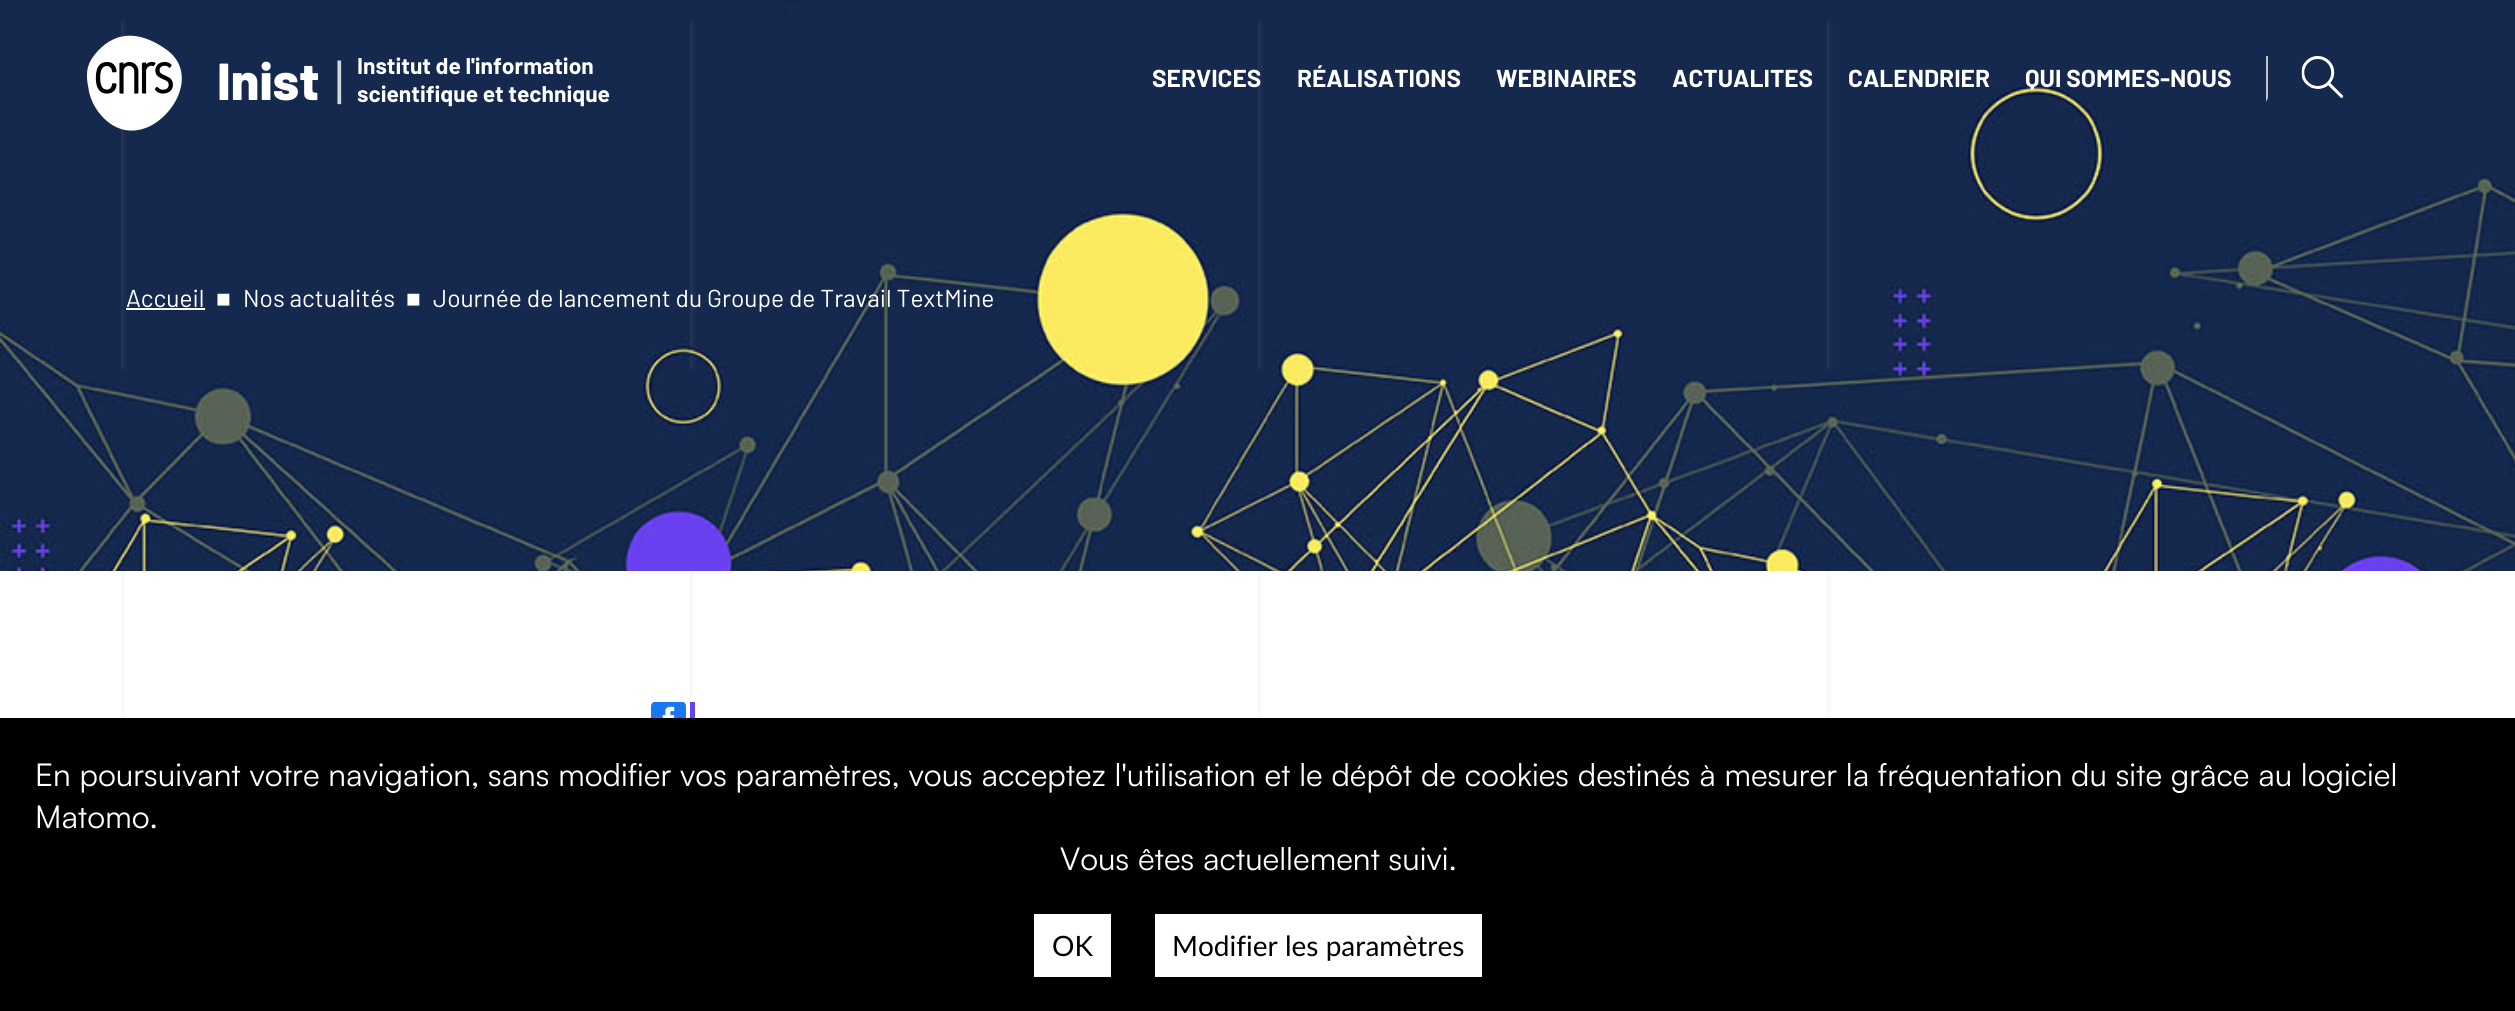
import math
import cairo


def paste(ctx, path, x, y, w, h):
	ctx.save()
	ctx.set_source_surface(cairo.ImageSurface.create_from_png(path), x, y)
	ctx.rectangle(x, y, w, h)
	ctx.fill()
	ctx.restore()

def draw(ctx):
	ctx.set_source_rgb(1, 1, 1)
	ctx.paint()
	paste(ctx, 'media/1.png', 0, 0, 2515, 571)
	gradient = cairo.LinearGradient(121, 22, 690, 22)
	gradient.add_color_stop_rgba(0, 0.141, 0.212, 0.341, 1)
	gradient.add_color_stop_rgba(0.01, 0.082, 0.161, 0.306, 1)
	gradient.add_color_stop_rgba(1, 0.082, 0.161, 0.306, 1)
	ctx.set_source(gradient)
	ctx.rectangle(121, 21, 5, 116)
	ctx.fill()
	gradient = cairo.LinearGradient(690, 22, 1258, 22)
	gradient.add_color_stop_rgba(0, 0.141, 0.212, 0.341, 1)
	gradient.add_color_stop_rgba(0.01, 0.082, 0.161, 0.306, 1)
	gradient.add_color_stop_rgba(1, 0.082, 0.161, 0.306, 1)
	ctx.set_source(gradient)
	ctx.rectangle(690, 21, 5, 116)
	ctx.fill()
	gradient = cairo.LinearGradient(1258, 22, 1827, 22)
	gradient.add_color_stop_rgba(0, 0.141, 0.212, 0.341, 1)
	gradient.add_color_stop_rgba(0.01, 0.082, 0.161, 0.306, 1)
	gradient.add_color_stop_rgba(1, 0.082, 0.161, 0.306, 1)
	ctx.set_source(gradient)
	ctx.rectangle(1258, 21, 5, 116)
	ctx.fill()
	paste(ctx, 'media/2.png', 86, 35, 96, 96)
	ctx.select_font_face('Barlow ExtraBold')
	ctx.set_font_size(52)
	ctx.set_source_rgb(1, 1, 1)
	ctx.move_to(217, 100)
	ctx.show_text('Inist')
	ctx.select_font_face('Barlow')
	ctx.set_source_rgb(0.816, 0.831, 0.863)
	ctx.move_to(335, 100)
	ctx.show_text('|')
	ctx.select_font_face('Barlow', cairo.FONT_SLANT_NORMAL, cairo.FONT_WEIGHT_BOLD)
	ctx.set_font_size(22.75)
	ctx.set_source_rgb(1, 1, 1)
	ctx.move_to(357, 74)
	ctx.show_text('Institut de l\'information')
	ctx.move_to(357, 102)
	ctx.show_text('scientifique et technique')
	ctx.set_font_size(24.5)
	for x, y, s in [
		(1152, 87, 'SERVICES'),
		(1297, 87, 'RÉALISATIONS'),
		(1496, 87, 'WEBINAIRES'),
		(1672, 87, 'ACTUALITES'),
		(1848, 87, 'CALENDRIER'),
		(2025, 87, 'QUI SOMMES-NOUS'),
	]:
		ctx.move_to(x, y)
		ctx.show_text(s)
	paste(ctx, 'media/3.png', 2301, 56, 42, 42)
	ctx.set_source_rgb(0.769, 0.765, 0.765)
	ctx.new_path()
	ctx.move_to(2266, 102)
	ctx.line_to(2266, 56)
	ctx.line_to(2268, 56)
	ctx.line_to(2268, 98)
	ctx.close_path()
	ctx.fill()
	ctx.select_font_face('Barlow')
	ctx.set_source_rgb(1, 1, 1)
	ctx.move_to(126, 307)
	ctx.show_text('Accueil')
	ctx.rectangle(126, 308, 79, 2)
	ctx.fill()
	ctx.select_font_face('Liberation Sans')
	ctx.move_to(216, 307)
	ctx.show_text('■')
	ctx.select_font_face('Barlow')
	ctx.move_to(243, 307)
	ctx.show_text('Nos actualités')
	ctx.select_font_face('Liberation Sans')
	ctx.move_to(406, 307)
	ctx.show_text('■')
	ctx.select_font_face('Barlow')
	ctx.move_to(433, 307)
	ctx.show_text('Journée de lancement du Groupe de Travail TextMine')
	gradient = cairo.LinearGradient(121, 571, 690, 571)
	gradient.add_color_stop_rgba(0, 0.969, 0.969, 0.969, 1)
	gradient.add_color_stop_rgba(0.01, 1, 1, 1, 1)
	gradient.add_color_stop_rgba(1, 1, 1, 1, 1)
	ctx.set_source(gradient)
	ctx.rectangle(121, 571, 4, 147)
	ctx.fill()
	gradient = cairo.LinearGradient(690, 571, 1258, 571)
	gradient.add_color_stop_rgba(0, 0.969, 0.969, 0.969, 1)
	gradient.add_color_stop_rgba(0.01, 1, 1, 1, 1)
	gradient.add_color_stop_rgba(1, 1, 1, 1, 1)
	ctx.set_source(gradient)
	ctx.rectangle(690, 571, 4, 147)
	ctx.fill()
	gradient = cairo.LinearGradient(1258, 571, 1827, 571)
	gradient.add_color_stop_rgba(0, 0.969, 0.969, 0.969, 1)
	gradient.add_color_stop_rgba(0.01, 1, 1, 1, 1)
	gradient.add_color_stop_rgba(1, 1, 1, 1, 1)
	ctx.set_source(gradient)
	ctx.rectangle(1258, 571, 4, 147)
	ctx.fill()
	gradient = cairo.LinearGradient(1827, 571, 2396, 571)
	gradient.add_color_stop_rgba(0, 0.969, 0.969, 0.969, 1)
	gradient.add_color_stop_rgba(0.01, 1, 1, 1, 1)
	gradient.add_color_stop_rgba(1, 1, 1, 1, 1)
	ctx.set_source(gradient)
	ctx.rectangle(1827, 571, 4, 147)
	ctx.fill()
	paste(ctx, 'media/4.png', 651, 702, 35, 16)
	ctx.set_source_rgb(0.412, 0.255, 0.922)
	ctx.rectangle(690, 702, 5, 16)
	ctx.fill()
	ctx.set_source_rgb(0, 0, 0)
	ctx.rectangle(0, 718, 2515, 293)
	ctx.fill()
	ctx.select_font_face('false')
	ctx.set_font_size(31.5)
	ctx.set_source_rgb(1, 1, 1)
	for x, y, s in [
		(35, 786, 'En poursuivant votre navigation, sans modifier vos paramètres, vous acceptez l\'utilisation et le dépôt de cookies destinés à mesurer la fréquentation du site grâce au logiciel'),
		(35, 828, 'Matomo.'),
		(1060, 870, 'Vous êtes actuellement suivi.'),
	]:
		ctx.move_to(x, y)
		ctx.show_text(s)
	ctx.rectangle(1034, 914, 77, 63)
	ctx.fill()
	ctx.select_font_face('Lato')
	ctx.set_font_size(28)
	ctx.set_source_rgb(0, 0, 0)
	ctx.move_to(1052, 956)
	ctx.show_text('OK')
	ctx.set_source_rgb(1, 1, 1)
	ctx.rectangle(1155, 914, 327, 63)
	ctx.fill()
	ctx.set_source_rgb(0, 0, 0)
	ctx.move_to(1172, 956)
	ctx.show_text('Modifier les paramètres')


surface = cairo.ImageSurface(cairo.FORMAT_RGB24, 2515, 1011)
ctx = cairo.Context(surface)
options = cairo.FontOptions()
options.set_hint_metrics(cairo.HINT_METRICS_OFF)
options.set_hint_style(cairo.HINT_STYLE_NONE)
ctx.set_font_options(options)
ctx.set_miter_limit(4)
draw(ctx)
surface.write_to_png('image.png')
